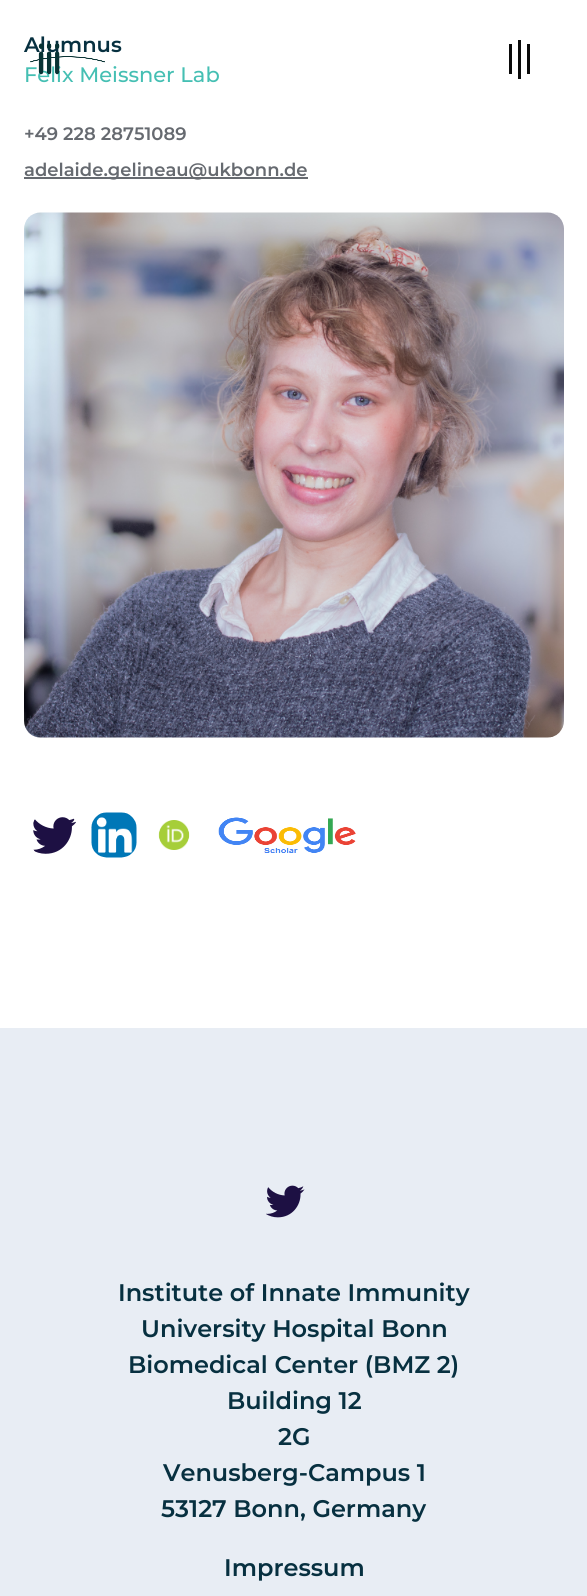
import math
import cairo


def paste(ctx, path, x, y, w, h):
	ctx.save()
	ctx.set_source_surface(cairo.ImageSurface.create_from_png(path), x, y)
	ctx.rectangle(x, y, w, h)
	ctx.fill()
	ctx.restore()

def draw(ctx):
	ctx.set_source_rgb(1, 1, 1)
	ctx.paint()
	ctx.select_font_face('Montserrat SemiBold')
	ctx.set_font_size(21)
	ctx.set_source_rgb(0.031, 0.188, 0.251)
	ctx.move_to(24, 52)
	ctx.show_text('Alumnus')
	ctx.select_font_face('Montserrat Medium')
	ctx.set_source_rgb(0.271, 0.749, 0.702)
	ctx.move_to(24, 82)
	ctx.show_text('Felix Meissner Lab')
	ctx.select_font_face('Montserrat SemiBold')
	ctx.set_font_size(18)
	ctx.set_source_rgb(0.4, 0.416, 0.439)
	ctx.move_to(24, 140)
	ctx.show_text('+49 228 28751089')
	ctx.rectangle(24, 177, 284, 2)
	ctx.fill()
	ctx.move_to(24, 176)
	ctx.show_text('adelaide.gelineau@ukbonn.de')
	paste(ctx, 'media/1.png', 24, 212, 540, 526)
	paste(ctx, 'media/2.png', 33, 817, 43, 37)
	paste(ctx, 'media/3.png', 91, 812, 46, 46)
	paste(ctx, 'media/4.png', 158, 820, 32, 30)
	paste(ctx, 'media/5.png', 218, 817, 138, 36)
	paste(ctx, 'media/6.png', 30, 43, 75, 32)
	ctx.set_source_rgb(0.043, 0.043, 0.043)
	ctx.rectangle(509, 44, 3, 30)
	ctx.rectangle(518, 40, 3, 39)
	ctx.rectangle(527, 44, 3, 30)
	ctx.fill()
	ctx.set_source_rgb(0.91, 0.929, 0.957)
	ctx.rectangle(0, 1028, 587, 568)
	ctx.fill()
	paste(ctx, 'media/7.png', 266, 1185, 39, 33)
	ctx.set_font_size(24)
	ctx.set_source_rgb(0.031, 0.188, 0.251)
	for x, y, s in [
		(118, 1301, 'Institute of Innate Immunity'),
		(141, 1337, 'University Hospital Bonn'),
		(128, 1373, 'Biomedical Center (BMZ 2)'),
		(227, 1409, 'Building 12'),
		(278, 1445, '2G'),
		(163, 1481, 'Venusberg-Campus 1'),
		(161, 1517, '53127 Bonn, Germany'),
		(224, 1576, 'Impressum'),
	]:
		ctx.move_to(x, y)
		ctx.show_text(s)


surface = cairo.ImageSurface(cairo.FORMAT_RGB24, 587, 1596)
ctx = cairo.Context(surface)
options = cairo.FontOptions()
options.set_hint_metrics(cairo.HINT_METRICS_OFF)
options.set_hint_style(cairo.HINT_STYLE_NONE)
ctx.set_font_options(options)
ctx.set_miter_limit(4)
draw(ctx)
surface.write_to_png('image.png')
